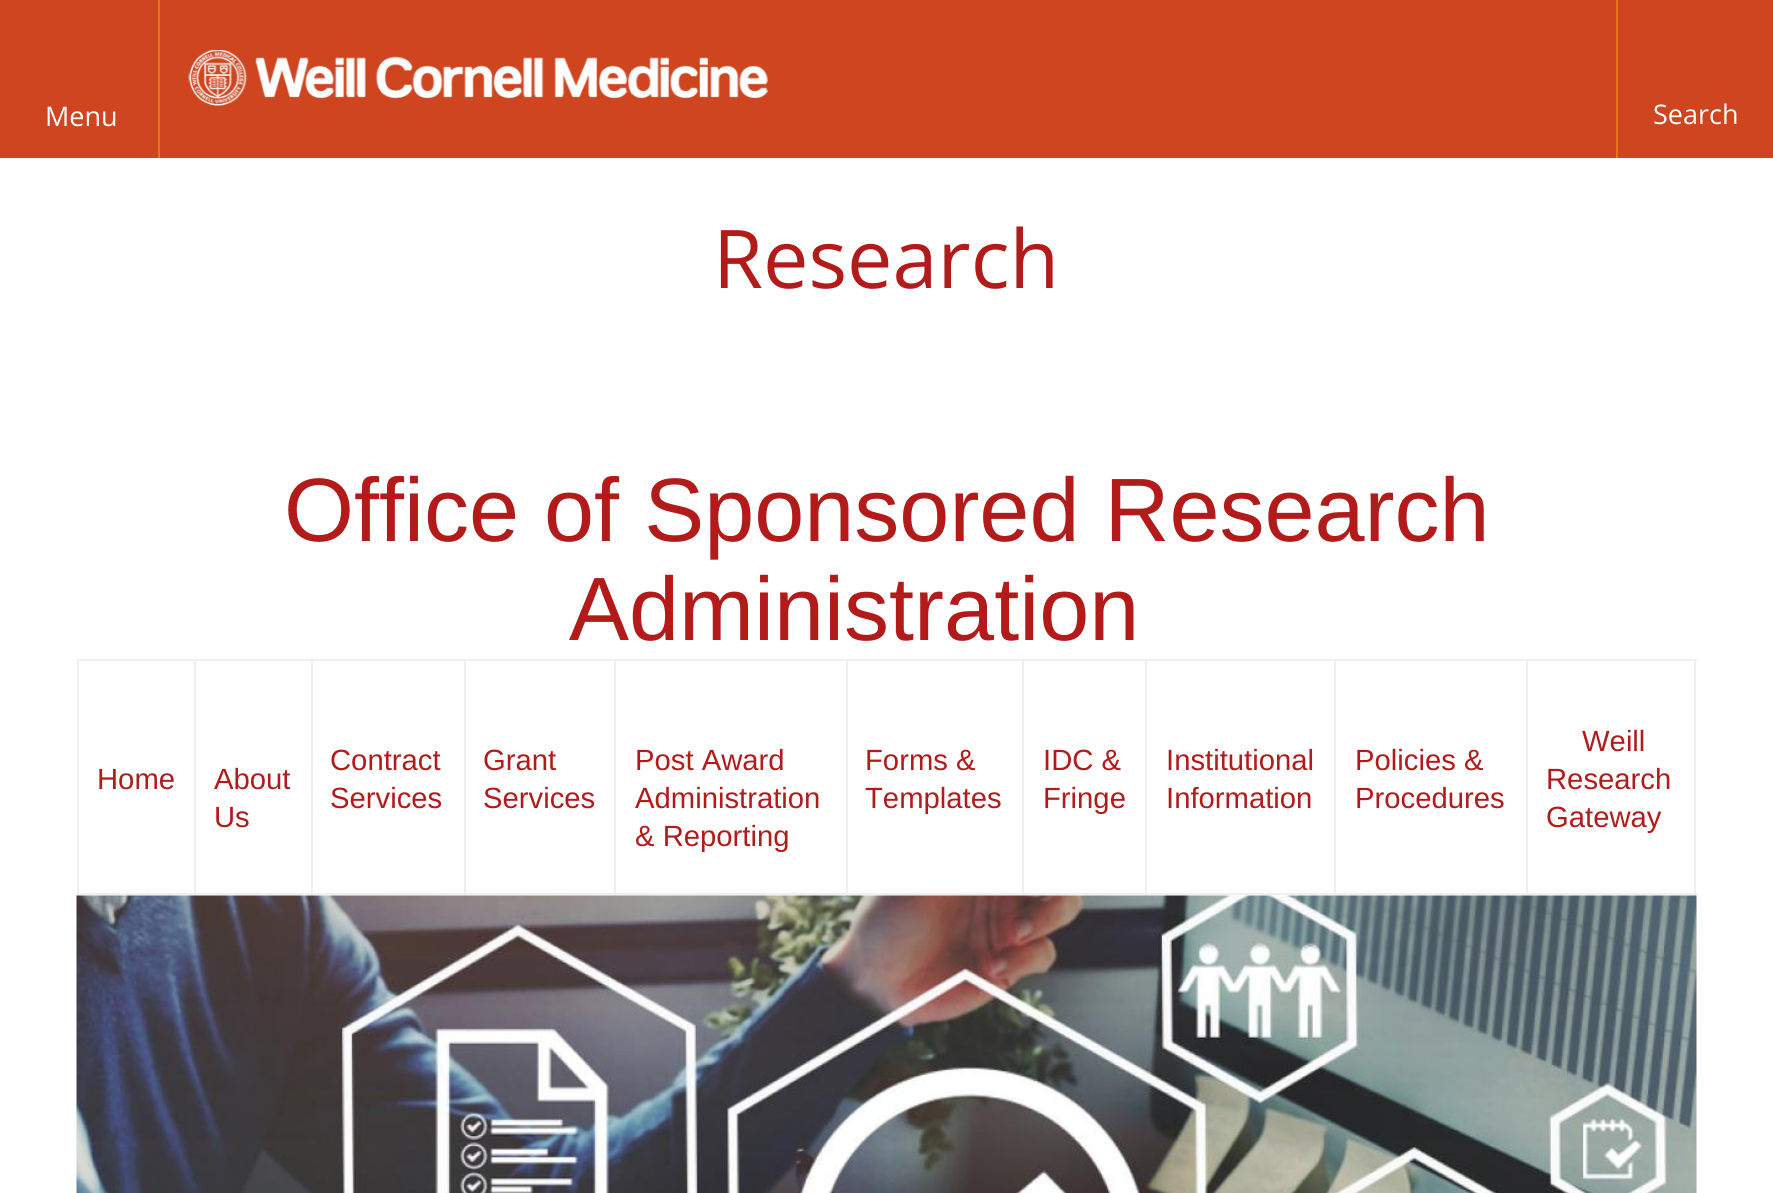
import math
import cairo


def paste(ctx, path, x, y, w, h):
	ctx.save()
	ctx.set_source_surface(cairo.ImageSurface.create_from_png(path), x, y)
	ctx.rectangle(x, y, w, h)
	ctx.fill()
	ctx.restore()

def draw(ctx):
	ctx.set_source_rgb(1, 1, 1)
	ctx.paint()
	ctx.set_source_rgb(0.812, 0.271, 0.125)
	ctx.rectangle(0, 0, 1773, 158)
	ctx.fill()
	paste(ctx, 'media/1.png', 188, 50, 580, 56)
	ctx.set_source_rgb(0.906, 0.459, 0.114)
	ctx.rectangle(158, 0, 2, 158)
	ctx.fill()
	ctx.select_font_face('Open Sans')
	ctx.set_font_size(27)
	ctx.set_source_rgb(1, 1, 1)
	ctx.move_to(45, 126)
	ctx.show_text('Menu')
	ctx.set_source_rgb(0.906, 0.459, 0.114)
	ctx.rectangle(1616, 0, 2, 158)
	ctx.fill()
	ctx.set_source_rgb(1, 1, 1)
	ctx.move_to(1653, 124)
	ctx.show_text('Search')
	ctx.set_font_size(81)
	ctx.set_source_rgb(0.702, 0.106, 0.106)
	ctx.move_to(713, 288)
	ctx.show_text('Research')
	ctx.select_font_face('Liberation Sans')
	ctx.set_font_size(90)
	ctx.move_to(284, 541)
	ctx.show_text('Office of Sponsored Research')
	ctx.move_to(569, 640)
	ctx.show_text('Administration')
	ctx.set_source_rgb(0.937, 0.937, 0.937)
	ctx.rectangle(1694, 659, 2, 237)
	ctx.rectangle(77, 893, 1620, 2)
	ctx.rectangle(77, 659, 2, 237)
	ctx.rectangle(1526, 659, 171, 2)
	ctx.rectangle(1526, 659, 2, 237)
	ctx.rectangle(1334, 659, 194, 2)
	ctx.rectangle(1334, 659, 2, 237)
	ctx.rectangle(1145, 659, 192, 2)
	ctx.rectangle(1145, 659, 2, 237)
	ctx.rectangle(1022, 659, 126, 2)
	ctx.rectangle(1022, 659, 2, 237)
	ctx.rectangle(846, 659, 178, 2)
	ctx.rectangle(846, 659, 2, 237)
	ctx.rectangle(614, 659, 234, 2)
	ctx.rectangle(614, 659, 2, 237)
	ctx.rectangle(464, 659, 153, 2)
	ctx.rectangle(464, 659, 2, 237)
	ctx.rectangle(311, 659, 155, 2)
	ctx.rectangle(311, 659, 2, 237)
	ctx.rectangle(194, 659, 119, 2)
	ctx.rectangle(194, 659, 2, 237)
	ctx.rectangle(77, 659, 119, 2)
	ctx.fill()
	ctx.set_font_size(29.25)
	ctx.set_source_rgb(0.702, 0.106, 0.106)
	for x, y, s in [
		(97, 789, 'Home'),
		(214, 789, 'About'),
		(214, 827, 'Us'),
		(330, 770, 'Contract'),
		(330, 808, 'Services'),
		(483, 770, 'Grant'),
		(483, 808, 'Services'),
		(635, 770, 'Post Award'),
		(635, 808, 'Administration'),
		(635, 846, '& Reporting'),
		(865, 770, 'Forms &'),
		(865, 808, 'Templates'),
		(1043, 770, 'IDC &'),
		(1043, 808, 'Fringe'),
		(1166, 770, 'Institutional'),
		(1166, 808, 'Information'),
		(1355, 770, 'Policies &'),
		(1355, 808, 'Procedures'),
		(1582, 751, 'Weill'),
		(1546, 789, 'Research'),
		(1546, 827, 'Gateway'),
	]:
		ctx.move_to(x, y)
		ctx.show_text(s)
	paste(ctx, 'media/2.png', 76, 895, 1621, 298)


surface = cairo.ImageSurface(cairo.FORMAT_RGB24, 1773, 1193)
ctx = cairo.Context(surface)
options = cairo.FontOptions()
options.set_hint_metrics(cairo.HINT_METRICS_OFF)
options.set_hint_style(cairo.HINT_STYLE_NONE)
ctx.set_font_options(options)
ctx.set_miter_limit(4)
draw(ctx)
surface.write_to_png('image.png')
